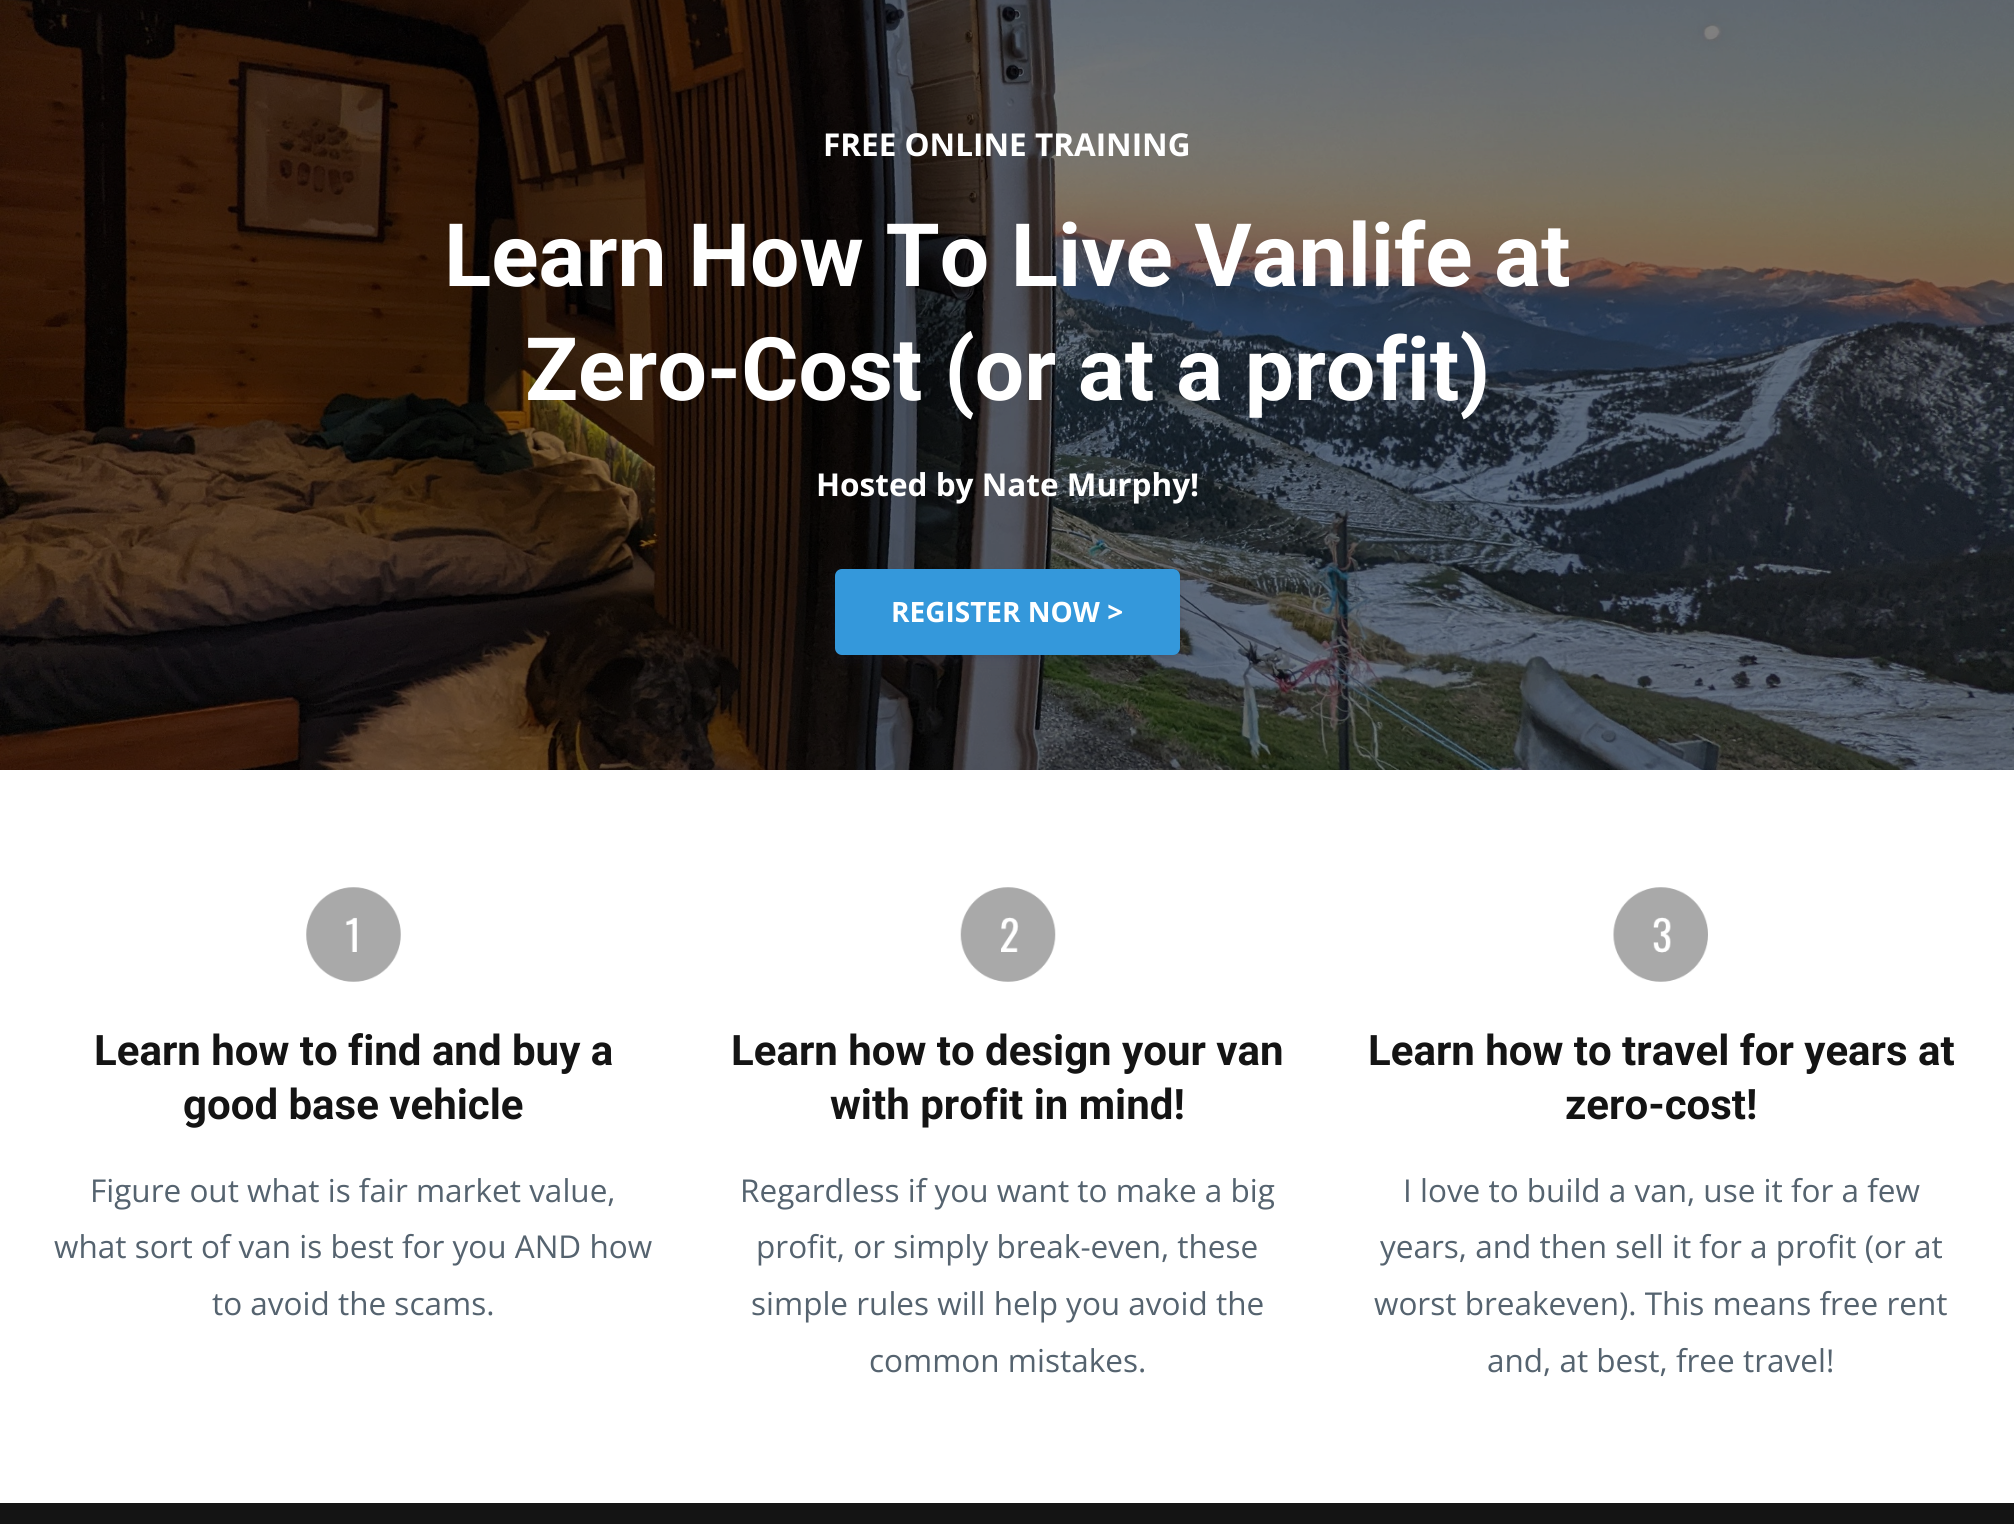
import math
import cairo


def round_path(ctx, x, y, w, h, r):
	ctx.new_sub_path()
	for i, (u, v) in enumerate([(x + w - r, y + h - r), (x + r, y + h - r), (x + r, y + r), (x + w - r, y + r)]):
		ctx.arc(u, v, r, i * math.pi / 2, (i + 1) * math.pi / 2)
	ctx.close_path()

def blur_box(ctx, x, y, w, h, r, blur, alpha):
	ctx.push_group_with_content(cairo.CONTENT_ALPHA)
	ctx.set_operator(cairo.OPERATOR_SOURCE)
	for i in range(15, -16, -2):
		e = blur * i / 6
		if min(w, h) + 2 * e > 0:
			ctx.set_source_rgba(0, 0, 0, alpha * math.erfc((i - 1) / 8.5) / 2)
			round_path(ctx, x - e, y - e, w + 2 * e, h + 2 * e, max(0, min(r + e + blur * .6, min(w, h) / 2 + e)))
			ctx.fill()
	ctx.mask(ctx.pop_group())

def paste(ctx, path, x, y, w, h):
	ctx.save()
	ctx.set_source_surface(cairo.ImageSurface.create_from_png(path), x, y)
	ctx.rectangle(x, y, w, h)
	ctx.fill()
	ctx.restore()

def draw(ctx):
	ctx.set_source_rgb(1, 1, 1)
	ctx.paint()
	paste(ctx, 'media/1.png', 0, 0, 2014, 770)
	ctx.select_font_face('Open Sans', cairo.FONT_SLANT_NORMAL, cairo.FONT_WEIGHT_BOLD)
	ctx.set_font_size(31.5)
	ctx.set_source_rgb(1, 1, 1)
	ctx.move_to(823, 156)
	ctx.show_text('FREE ONLINE TRAINING')
	ctx.select_font_face('Roboto', cairo.FONT_SLANT_NORMAL, cairo.FONT_WEIGHT_BOLD)
	ctx.set_font_size(87.5)
	ctx.move_to(444, 286)
	ctx.show_text('Learn How To Live Vanlife at')
	ctx.move_to(525, 400)
	ctx.show_text('Zero-Cost (or at a profit)')
	ctx.select_font_face('Open Sans', cairo.FONT_SLANT_NORMAL, cairo.FONT_WEIGHT_BOLD)
	ctx.set_font_size(31.5)
	ctx.move_to(816, 496)
	ctx.show_text('Hosted by Nate Murphy!')
	ctx.set_source_rgb(0, 0, 0)
	blur_box(ctx, 835, 571, 345, 85, 7, 2.5, 0.08)
	ctx.set_source_rgb(0.196, 0.196, 0.365)
	blur_box(ctx, 835, 576, 345, 86, 7, 5, 0.11)
	ctx.set_source_rgb(0.204, 0.596, 0.859)
	round_path(ctx, 837, 571, 341, 82, 5)
	ctx.fill_preserve()
	ctx.set_line_width(4)
	ctx.stroke()
	ctx.set_font_size(28)
	ctx.set_source_rgb(1, 1, 1)
	ctx.move_to(891, 622)
	ctx.show_text('REGISTER NOW >')
	paste(ctx, 'media/2.png', 306, 887, 95, 95)
	ctx.select_font_face('Roboto', cairo.FONT_SLANT_NORMAL, cairo.FONT_WEIGHT_BOLD)
	ctx.set_font_size(42)
	ctx.set_source_rgb(0.082, 0.082, 0.082)
	ctx.move_to(94, 1065)
	ctx.show_text('Learn how to find and buy a')
	ctx.move_to(183, 1119)
	ctx.show_text('good base vehicle')
	ctx.select_font_face('Open Sans')
	ctx.set_font_size(31.5)
	ctx.set_source_rgb(0.333, 0.388, 0.435)
	for x, y, s in [
		(90, 1202, 'Figure out what is fair market value,'),
		(54, 1258, 'what sort of van is best for you AND how'),
		(212, 1315, 'to avoid the scams.'),
	]:
		ctx.move_to(x, y)
		ctx.show_text(s)
	paste(ctx, 'media/3.png', 960, 887, 96, 95)
	ctx.select_font_face('Roboto', cairo.FONT_SLANT_NORMAL, cairo.FONT_WEIGHT_BOLD)
	ctx.set_font_size(42)
	ctx.set_source_rgb(0.082, 0.082, 0.082)
	ctx.move_to(731, 1065)
	ctx.show_text('Learn how to design your van')
	ctx.move_to(830, 1119)
	ctx.show_text('with profit in mind!')
	ctx.select_font_face('Open Sans')
	ctx.set_font_size(31.5)
	ctx.set_source_rgb(0.333, 0.388, 0.435)
	for x, y, s in [
		(740, 1202, 'Regardless if you want to make a big'),
		(756, 1258, 'profit, or simply break-even, these'),
		(751, 1315, 'simple rules will help you avoid the'),
		(869, 1372, 'common mistakes.'),
	]:
		ctx.move_to(x, y)
		ctx.show_text(s)
	paste(ctx, 'media/4.png', 1613, 887, 95, 95)
	ctx.select_font_face('Roboto', cairo.FONT_SLANT_NORMAL, cairo.FONT_WEIGHT_BOLD)
	ctx.set_font_size(42)
	ctx.set_source_rgb(0.082, 0.082, 0.082)
	ctx.move_to(1368, 1065)
	ctx.show_text('Learn how to travel for years at')
	ctx.move_to(1565, 1119)
	ctx.show_text('zero-cost!')
	ctx.select_font_face('Open Sans')
	ctx.set_font_size(31.5)
	ctx.set_source_rgb(0.333, 0.388, 0.435)
	for x, y, s in [
		(1403, 1202, 'I love to build a van, use it for a few'),
		(1380, 1258, 'years, and then sell it for a profit (or at'),
		(1374, 1315, 'worst breakeven). This means free rent'),
		(1487, 1372, 'and, at best, free travel!'),
	]:
		ctx.move_to(x, y)
		ctx.show_text(s)
	ctx.set_source_rgb(0.082, 0.082, 0.082)
	ctx.rectangle(0, 1503, 2014, 21)
	ctx.fill()


surface = cairo.ImageSurface(cairo.FORMAT_RGB24, 2014, 1524)
ctx = cairo.Context(surface)
options = cairo.FontOptions()
options.set_hint_metrics(cairo.HINT_METRICS_OFF)
options.set_hint_style(cairo.HINT_STYLE_NONE)
ctx.set_font_options(options)
ctx.set_miter_limit(4)
draw(ctx)
surface.write_to_png('image.png')
